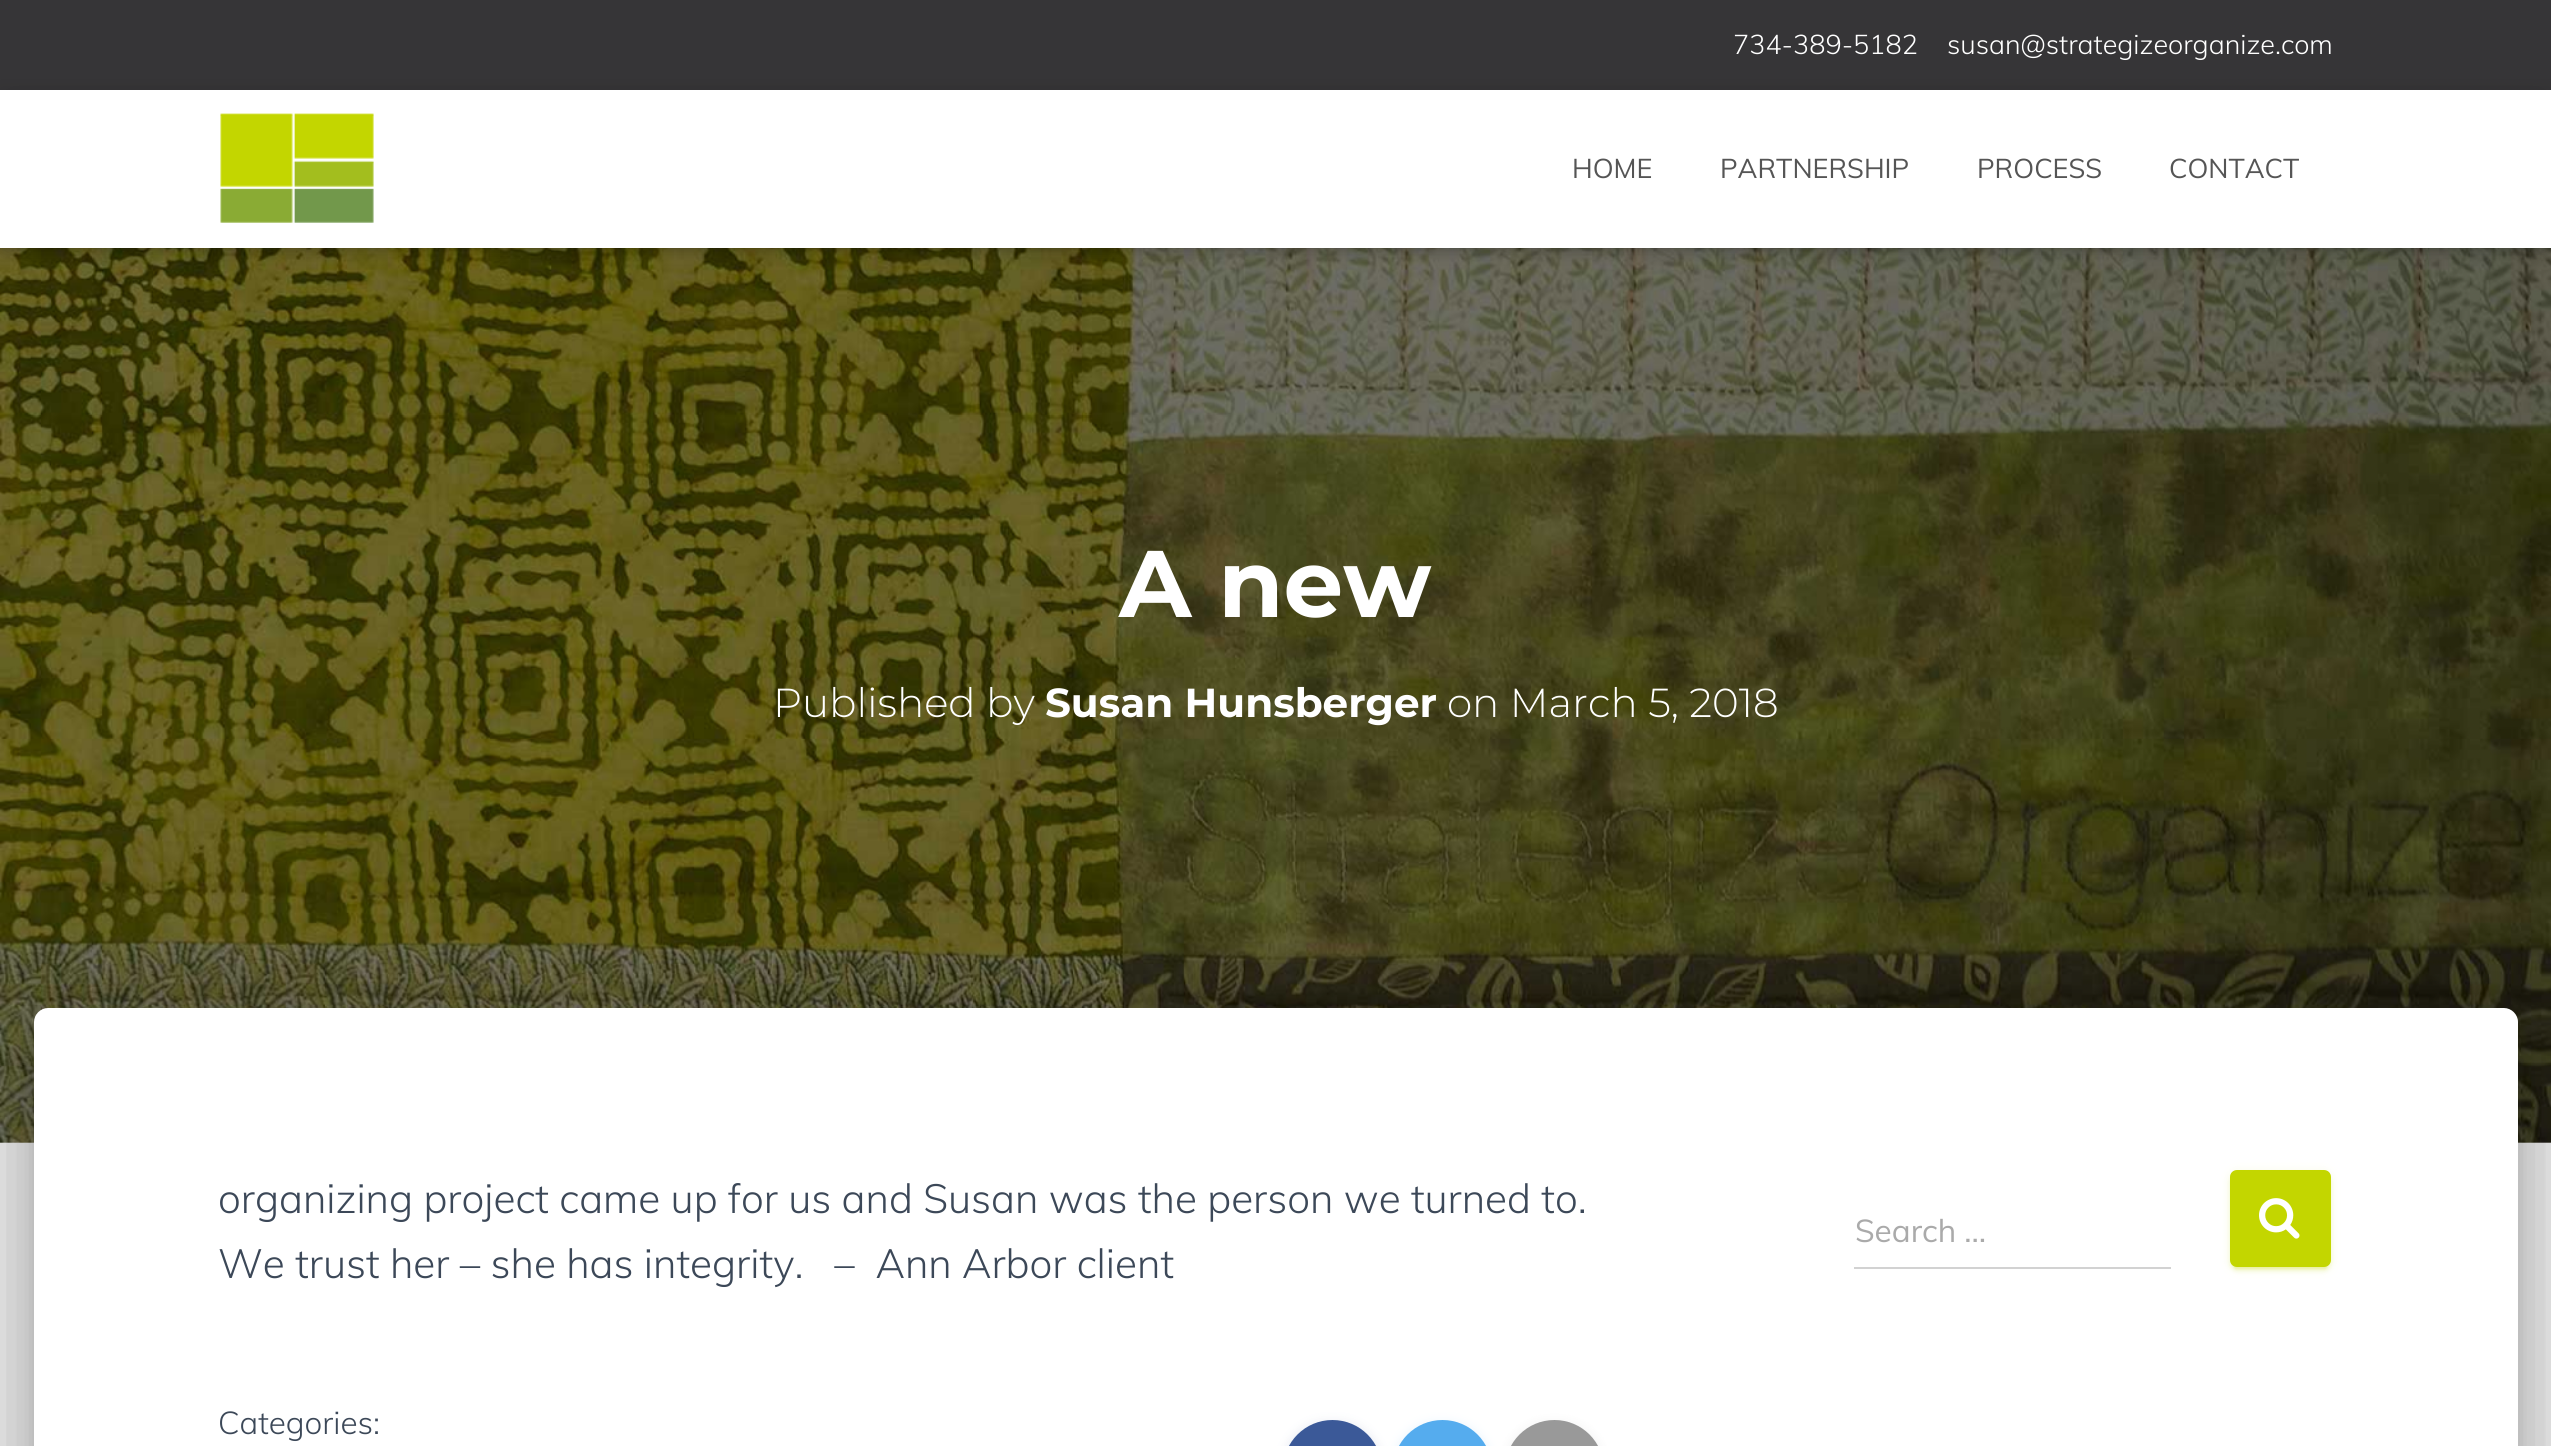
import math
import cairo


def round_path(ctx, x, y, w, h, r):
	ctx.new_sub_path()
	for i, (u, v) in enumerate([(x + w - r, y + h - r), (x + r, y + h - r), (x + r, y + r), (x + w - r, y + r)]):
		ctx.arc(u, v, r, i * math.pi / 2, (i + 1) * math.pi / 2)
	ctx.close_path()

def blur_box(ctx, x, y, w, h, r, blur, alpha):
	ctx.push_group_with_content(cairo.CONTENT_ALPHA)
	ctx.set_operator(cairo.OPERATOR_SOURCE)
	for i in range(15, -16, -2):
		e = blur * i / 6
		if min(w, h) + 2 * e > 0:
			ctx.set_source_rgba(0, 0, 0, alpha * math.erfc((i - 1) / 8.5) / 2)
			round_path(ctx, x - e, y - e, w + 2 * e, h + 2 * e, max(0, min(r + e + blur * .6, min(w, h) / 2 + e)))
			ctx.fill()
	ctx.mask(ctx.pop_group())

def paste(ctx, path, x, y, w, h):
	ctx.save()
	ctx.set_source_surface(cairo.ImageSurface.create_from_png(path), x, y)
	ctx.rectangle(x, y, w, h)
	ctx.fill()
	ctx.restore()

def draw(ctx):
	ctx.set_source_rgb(0.898, 0.898, 0.898)
	ctx.paint()
	ctx.set_source_rgb(0.212, 0.208, 0.216)
	ctx.rectangle(0, 0, 2551, 90)
	ctx.fill()
	ctx.select_font_face('Muli Light')
	ctx.set_font_size(27)
	ctx.set_source_rgb(1, 1, 1)
	ctx.move_to(1733, 54)
	ctx.show_text('734-389-5182')
	ctx.move_to(1947, 54)
	ctx.show_text('susan@strategizeorganize.com')
	paste(ctx, 'media/2.png', 0, 248, 2551, 895)
	ctx.set_source_rgb(0, 0, 0)
	blur_box(ctx, 5, 104, 2542, 148, 0, 5.5, 0.1)
	blur_box(ctx, 0, 92, 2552, 158, 0, 11, 0.12)
	blur_box(ctx, 14, 106, 2524, 130, 0, 11, 0.42)
	ctx.set_source_rgb(1, 1, 1)
	ctx.rectangle(0, 90, 2551, 158)
	ctx.fill()
	paste(ctx, 'media/1.png', 220, 113, 154, 110)
	ctx.select_font_face('Muli')
	ctx.set_source_rgb(0.333, 0.333, 0.333)
	for x, y, s in [
		(1572, 178, 'HOME'),
		(1720, 178, 'PARTNERSHIP'),
		(1977, 178, 'PROCESS'),
		(2169, 178, 'CONTACT'),
	]:
		ctx.move_to(x, y)
		ctx.show_text(s)
	ctx.select_font_face('Montserrat', cairo.FONT_SLANT_NORMAL, cairo.FONT_WEIGHT_BOLD)
	ctx.set_font_size(94.5)
	ctx.set_source_rgb(1, 1, 1)
	ctx.move_to(1119, 617)
	ctx.show_text('A new')
	ctx.select_font_face('Montserrat Light')
	ctx.set_font_size(40.5)
	ctx.move_to(773, 717)
	ctx.show_text('Published by')
	ctx.select_font_face('Montserrat', cairo.FONT_SLANT_NORMAL, cairo.FONT_WEIGHT_BOLD)
	ctx.move_to(1045, 717)
	ctx.show_text('Susan Hunsberger')
	ctx.select_font_face('Montserrat Light')
	ctx.move_to(1447, 717)
	ctx.show_text('on March 5, 2018')
	ctx.set_source_rgb(0, 0, 0)
	blur_box(ctx, 45, 1037, 2462, 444, 2, 11, 0.2)
	blur_box(ctx, 23, 1010, 2506, 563, 25, 34, 0.12)
	blur_box(ctx, 29, 1040, 2493, 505, 18, 27, 0.14)
	ctx.set_source_rgb(1, 1, 1)
	ctx.new_path()
	ctx.move_to(48, 1008)
	ctx.line_to(2504, 1008)
	ctx.curve_to(2511.5, 1008, 2518, 1014.5, 2518, 1022)
	ctx.line_to(2518, 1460)
	ctx.line_to(34, 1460)
	ctx.line_to(34, 1022)
	ctx.curve_to(34, 1014.5, 40.5, 1008, 48, 1008)
	ctx.close_path()
	ctx.fill()
	ctx.select_font_face('Muli Light')
	ctx.set_source_rgb(0.235, 0.282, 0.345)
	ctx.move_to(218, 1213)
	ctx.show_text('organizing project came up for us and Susan was the person we turned to.')
	ctx.move_to(218, 1278)
	ctx.show_text('We trust her – she has integrity.   –  Ann Arbor client')
	ctx.set_font_size(31.5)
	ctx.move_to(218, 1434)
	ctx.show_text('Categories:')
	ctx.set_source_rgb(0.231, 0.349, 0.596)
	blur_box(ctx, 1283, 1422, 99, 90, 49.5, 5.5, 0.12)
	ctx.set_source_rgb(0.231, 0.349, 0.596)
	round_path(ctx, 1283, 1420, 99, 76, 49.5)
	ctx.fill()
	ctx.set_source_rgb(0.333, 0.675, 0.933)
	blur_box(ctx, 1393, 1422, 99, 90, 49.5, 5.5, 0.12)
	ctx.set_source_rgb(0.333, 0.675, 0.933)
	round_path(ctx, 1393, 1420, 99, 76, 49.5)
	ctx.fill()
	ctx.set_source_rgb(0.6, 0.6, 0.6)
	blur_box(ctx, 1505, 1422, 99, 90, 49.5, 5.5, 0.12)
	ctx.set_source_rgb(0.6, 0.6, 0.6)
	round_path(ctx, 1505, 1420, 99, 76, 49.5)
	ctx.fill()
	ctx.select_font_face('Muli')
	ctx.set_source_rgb(0.667, 0.667, 0.667)
	ctx.move_to(1855, 1242)
	ctx.show_text('Search …')
	ctx.set_source_rgb(0.824, 0.824, 0.824)
	ctx.rectangle(1854, 1267, 317, 2)
	ctx.fill()
	ctx.set_source_rgb(0.765, 0.839, 0)
	blur_box(ctx, 2230, 1172, 101, 97, 7, 5.5, 0.12)
	blur_box(ctx, 2234, 1181, 93, 88, 2, 1, 0.2)
	blur_box(ctx, 2230, 1175, 101, 96, 7, 2, 0.14)
	ctx.set_source_rgb(0.765, 0.839, 0)
	round_path(ctx, 2230, 1170, 101, 97, 7)
	ctx.fill()
	paste(ctx, 'media/3.png', 2259, 1198, 41, 41)


surface = cairo.ImageSurface(cairo.FORMAT_RGB24, 2551, 1446)
ctx = cairo.Context(surface)
options = cairo.FontOptions()
options.set_hint_metrics(cairo.HINT_METRICS_OFF)
options.set_hint_style(cairo.HINT_STYLE_NONE)
ctx.set_font_options(options)
ctx.set_miter_limit(4)
draw(ctx)
surface.write_to_png('image.png')
